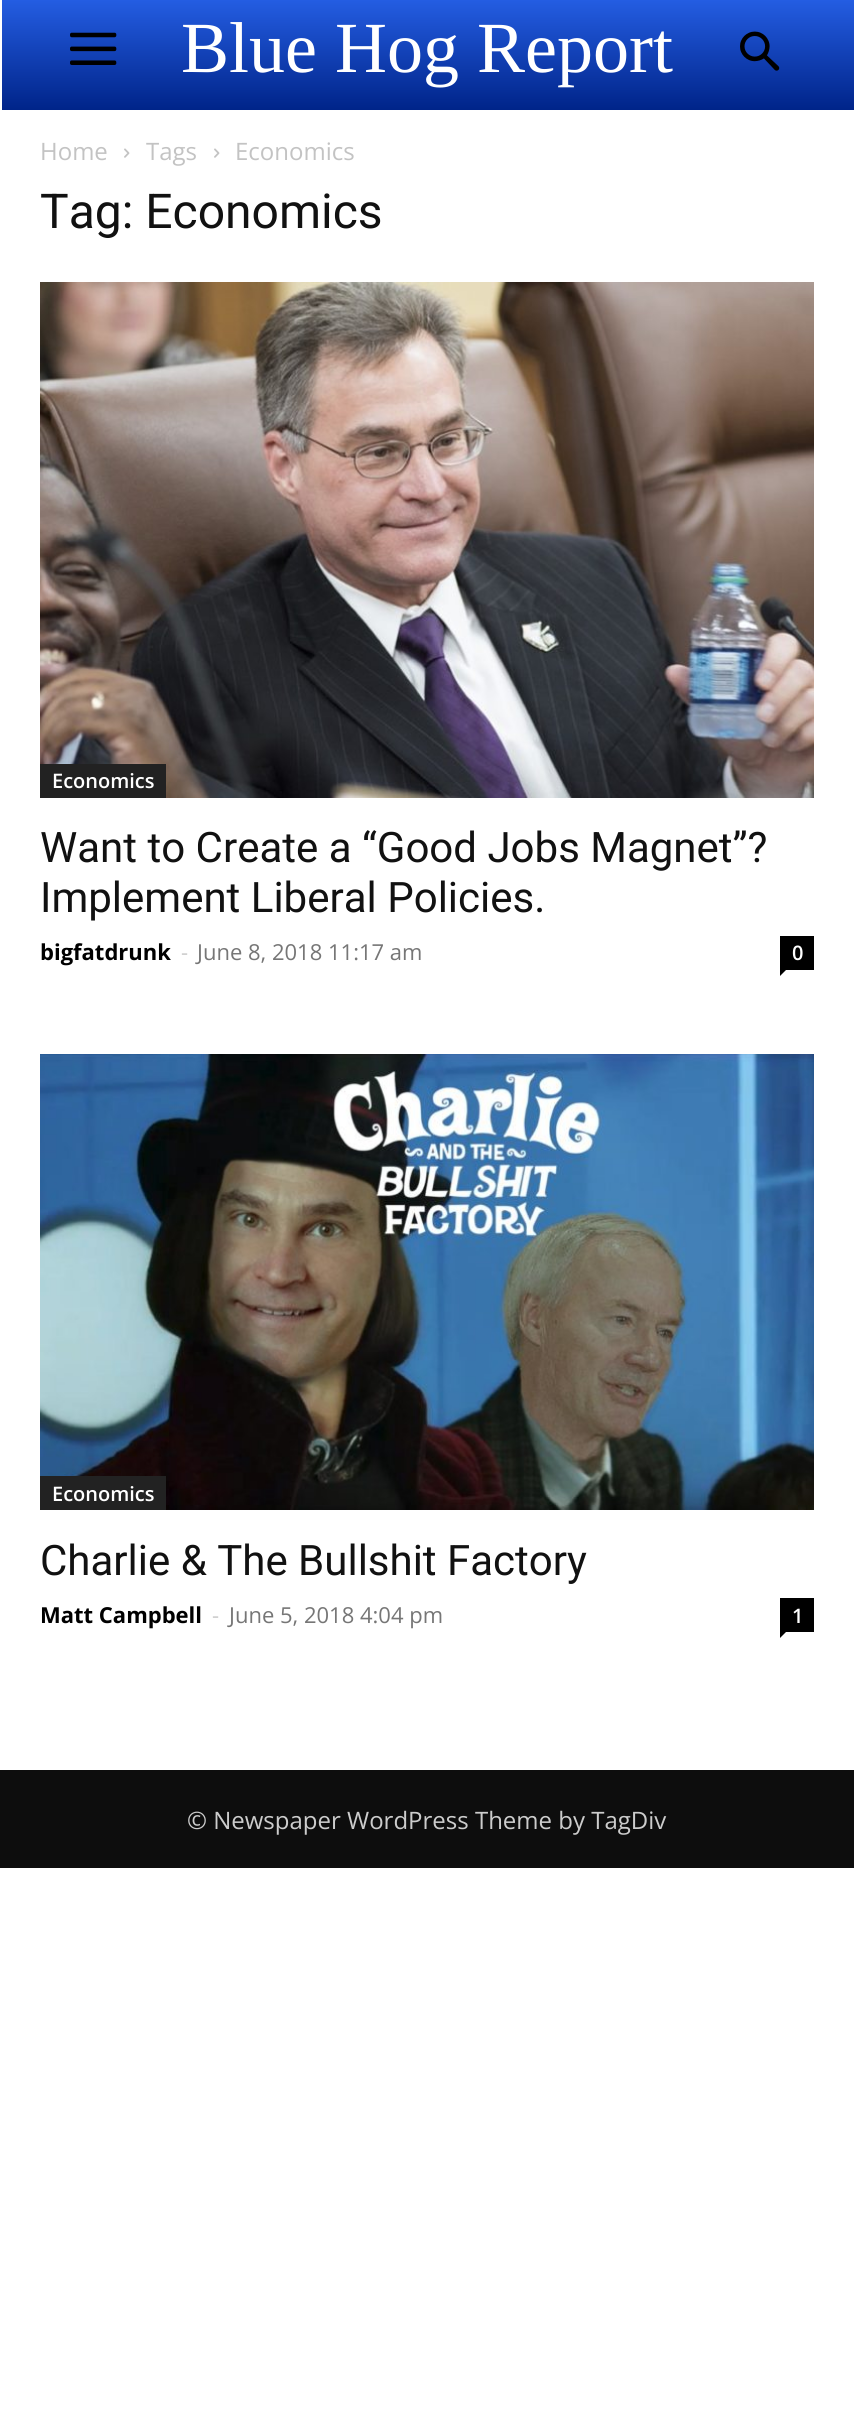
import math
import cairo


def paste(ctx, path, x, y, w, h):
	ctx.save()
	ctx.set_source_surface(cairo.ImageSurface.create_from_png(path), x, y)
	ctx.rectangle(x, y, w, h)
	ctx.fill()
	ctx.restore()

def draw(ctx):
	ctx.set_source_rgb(1, 1, 1)
	ctx.paint()
	gradient = cairo.LinearGradient(428, 110, 428, 0)
	gradient.add_color_stop_rgba(0, 0, 0.141, 0.537, 1)
	gradient.add_color_stop_rgba(1, 0.141, 0.365, 0.886, 1)
	ctx.set_source(gradient)
	ctx.rectangle(2, 0, 852, 110)
	ctx.fill()
	paste(ctx, 'media/1.png', 70, 32, 47, 33)
	ctx.select_font_face('Liberation Serif')
	ctx.set_font_size(72)
	ctx.set_source_rgb(1, 1, 1)
	ctx.move_to(181, 72)
	ctx.show_text('Blue Hog Report')
	paste(ctx, 'media/2.png', 740, 31, 40, 40)
	ctx.select_font_face('Open Sans')
	ctx.set_font_size(24)
	ctx.set_source_rgb(0.765, 0.765, 0.765)
	ctx.move_to(40, 160)
	ctx.show_text('Home')
	paste(ctx, 'media/3.png', 124, 148, 6, 10)
	ctx.move_to(146, 160)
	ctx.show_text('Tags')
	paste(ctx, 'media/3.png', 214, 148, 6, 10)
	ctx.move_to(235, 160)
	ctx.show_text('Economics')
	ctx.select_font_face('Roboto')
	ctx.set_font_size(48)
	ctx.set_source_rgb(0.067, 0.067, 0.067)
	ctx.move_to(40, 228)
	ctx.show_text('Tag: Economics')
	paste(ctx, 'media/4.png', 40, 282, 774, 516)
	ctx.set_source_rgb(0.133, 0.133, 0.133)
	ctx.rectangle(40, 764, 126, 34)
	ctx.fill()
	ctx.select_font_face('Open Sans SemiBold')
	ctx.set_font_size(20)
	ctx.set_source_rgb(1, 1, 1)
	ctx.move_to(52, 788)
	ctx.show_text('Economics')
	ctx.select_font_face('Roboto')
	ctx.set_font_size(42)
	ctx.set_source_rgb(0.067, 0.067, 0.067)
	ctx.move_to(40, 862)
	ctx.show_text('Want to Create a “Good Jobs Magnet”?')
	ctx.move_to(40, 912)
	ctx.show_text('Implement Liberal Policies.')
	ctx.select_font_face('Open Sans', cairo.FONT_SLANT_NORMAL, cairo.FONT_WEIGHT_BOLD)
	ctx.set_font_size(22)
	ctx.set_source_rgb(0, 0, 0)
	ctx.move_to(40, 960)
	ctx.show_text('bigfatdrunk')
	ctx.select_font_face('Open Sans')
	ctx.set_source_rgb(0.8, 0.8, 0.8)
	ctx.move_to(181, 960)
	ctx.show_text('-')
	ctx.set_source_rgb(0.463, 0.463, 0.463)
	ctx.move_to(197, 960)
	ctx.show_text('June 8, 2018 11:17 am')
	ctx.set_source_rgb(0, 0, 0)
	ctx.rectangle(780, 936, 34, 34)
	ctx.fill()
	ctx.select_font_face('Open Sans SemiBold')
	ctx.set_font_size(20)
	ctx.set_source_rgb(1, 1, 1)
	ctx.move_to(792, 960)
	ctx.show_text('0')
	ctx.set_source_rgb(0, 0, 0)
	ctx.new_path()
	ctx.move_to(780, 970)
	ctx.line_to(786, 970)
	ctx.line_to(780, 976)
	ctx.close_path()
	ctx.fill()
	paste(ctx, 'media/5.png', 40, 1054, 774, 456)
	ctx.set_source_rgb(0.133, 0.133, 0.133)
	ctx.rectangle(40, 1476, 126, 34)
	ctx.fill()
	ctx.set_source_rgb(1, 1, 1)
	ctx.move_to(52, 1501)
	ctx.show_text('Economics')
	ctx.select_font_face('Roboto')
	ctx.set_font_size(42)
	ctx.set_source_rgb(0.067, 0.067, 0.067)
	ctx.move_to(40, 1575)
	ctx.show_text('Charlie & The Bullshit Factory')
	ctx.select_font_face('Open Sans', cairo.FONT_SLANT_NORMAL, cairo.FONT_WEIGHT_BOLD)
	ctx.set_font_size(22)
	ctx.set_source_rgb(0, 0, 0)
	ctx.move_to(40, 1623)
	ctx.show_text('Matt Campbell')
	ctx.select_font_face('Open Sans')
	ctx.set_source_rgb(0.8, 0.8, 0.8)
	ctx.move_to(212, 1623)
	ctx.show_text('-')
	ctx.set_source_rgb(0.463, 0.463, 0.463)
	ctx.move_to(229, 1623)
	ctx.show_text('June 5, 2018 4:04 pm')
	ctx.set_source_rgb(0, 0, 0)
	ctx.rectangle(780, 1598, 34, 34)
	ctx.fill()
	ctx.select_font_face('Open Sans SemiBold')
	ctx.set_font_size(20)
	ctx.set_source_rgb(1, 1, 1)
	ctx.move_to(792, 1623)
	ctx.show_text('1')
	ctx.set_source_rgb(0, 0, 0)
	ctx.new_path()
	ctx.move_to(780, 1632)
	ctx.line_to(786, 1632)
	ctx.line_to(780, 1638)
	ctx.close_path()
	ctx.fill()
	ctx.set_source_rgb(0.051, 0.051, 0.051)
	ctx.rectangle(0, 1770, 854, 98)
	ctx.fill()
	ctx.select_font_face('Open Sans')
	ctx.set_font_size(24)
	ctx.set_source_rgb(0.8, 0.8, 0.8)
	ctx.move_to(187, 1829)
	ctx.show_text('© Newspaper WordPress Theme by TagDiv')


surface = cairo.ImageSurface(cairo.FORMAT_RGB24, 854, 2422)
ctx = cairo.Context(surface)
options = cairo.FontOptions()
options.set_hint_metrics(cairo.HINT_METRICS_OFF)
options.set_hint_style(cairo.HINT_STYLE_NONE)
ctx.set_font_options(options)
ctx.set_miter_limit(4)
draw(ctx)
surface.write_to_png('image.png')
